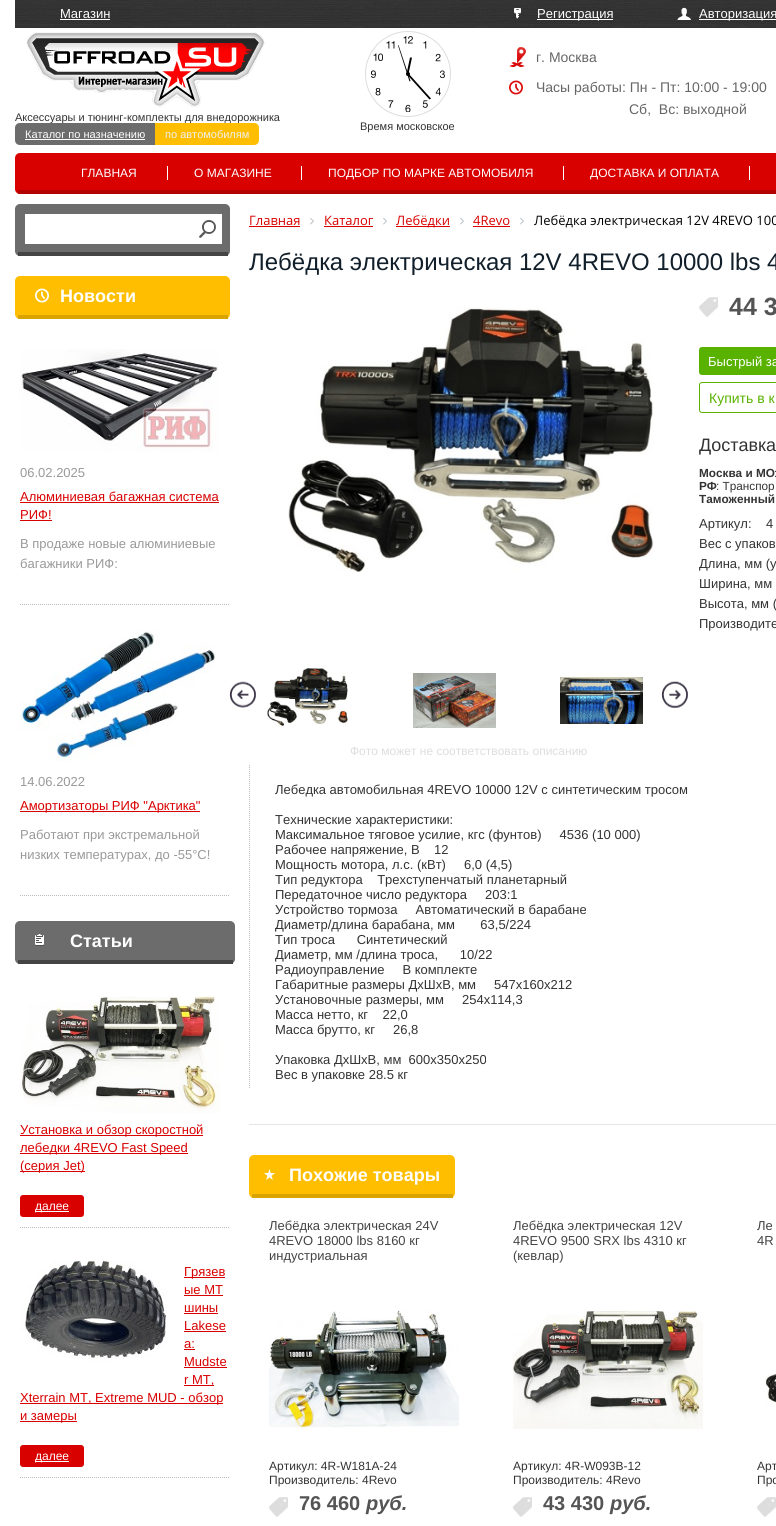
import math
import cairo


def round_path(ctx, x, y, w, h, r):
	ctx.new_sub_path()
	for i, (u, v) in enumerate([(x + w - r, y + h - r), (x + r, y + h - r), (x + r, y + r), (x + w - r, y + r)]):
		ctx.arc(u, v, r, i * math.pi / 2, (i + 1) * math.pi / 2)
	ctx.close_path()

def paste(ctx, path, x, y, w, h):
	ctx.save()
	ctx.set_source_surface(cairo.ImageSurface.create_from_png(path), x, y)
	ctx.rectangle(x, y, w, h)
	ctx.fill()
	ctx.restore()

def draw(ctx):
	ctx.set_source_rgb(1, 1, 1)
	ctx.paint()
	paste(ctx, 'media/1.png', 15, 0, 761, 28)
	ctx.select_font_face('Liberation Sans')
	ctx.set_font_size(13)
	ctx.set_source_rgb(1, 1, 1)
	ctx.move_to(60, 18)
	ctx.show_text('Магазин')
	ctx.rectangle(60, 19, 50, 1)
	ctx.fill()
	paste(ctx, 'media/2.png', 514, 8, 7, 11)
	ctx.rectangle(537, 19, 76, 1)
	ctx.fill()
	ctx.move_to(537, 18)
	ctx.show_text('Регистрация')
	paste(ctx, 'media/3.png', 677, 7, 14, 13)
	ctx.rectangle(699, 19, 77, 1)
	ctx.fill()
	ctx.move_to(699, 18)
	ctx.show_text('Авторизация')
	paste(ctx, 'media/4.png', 509, 47, 17, 20)
	ctx.set_font_size(14)
	ctx.set_source_rgb(0.4, 0.4, 0.4)
	ctx.move_to(536, 62)
	ctx.show_text('г. Москва')
	paste(ctx, 'media/5.png', 509, 80, 14, 15)
	ctx.move_to(536, 92)
	ctx.show_text('Часы работы: Пн - Пт: 10:00 - 19:00')
	ctx.move_to(629, 114)
	ctx.show_text('Сб,  Вс: выходной')
	paste(ctx, 'media/6.png', 26, 32, 239, 75)
	ctx.set_font_size(11)
	ctx.set_source_rgb(0.2, 0.2, 0.2)
	ctx.move_to(15, 121)
	ctx.show_text('Аксессуары и тюнинг-комплекты для внедорожника')
	paste(ctx, 'media/7.png', 371, 36, 74, 76)
	ctx.arc(408, 74, 42.5, 0, 2 * math.pi)
	ctx.set_source_rgb(0.867, 0.867, 0.867)
	ctx.set_line_width(1)
	ctx.stroke()
	ctx.set_source_rgb(0, 0, 0)
	ctx.new_path()
	ctx.move_to(410, 57.5)
	ctx.line_to(412, 57.5)
	ctx.line_to(408.5, 74)
	ctx.line_to(406.5, 74)
	ctx.close_path()
	ctx.fill()
	ctx.new_path()
	ctx.move_to(431, 98.5)
	ctx.line_to(429.5, 99.5)
	ctx.line_to(407, 74.5)
	ctx.line_to(408.5, 73.5)
	ctx.close_path()
	ctx.fill()
	ctx.new_path()
	ctx.move_to(398, 45.5)
	ctx.line_to(398.5, 45)
	ctx.line_to(410.5, 81)
	ctx.line_to(409.5, 81.5)
	ctx.close_path()
	ctx.fill()
	ctx.arc(408, 74, 2, 0, 2 * math.pi)
	ctx.fill()
	ctx.set_source_rgb(0.2, 0.2, 0.2)
	ctx.move_to(360, 130)
	ctx.show_text('Время московское')
	ctx.set_source_rgb(0.424, 0.424, 0.424)
	ctx.new_path()
	ctx.move_to(20, 123)
	ctx.line_to(155, 123)
	ctx.line_to(155, 145)
	ctx.line_to(20, 145)
	ctx.curve_to(17, 145, 15, 143, 15, 140)
	ctx.line_to(15, 128)
	ctx.curve_to(15, 125, 17, 123, 20, 123)
	ctx.close_path()
	ctx.fill()
	ctx.set_source_rgb(1, 1, 1)
	ctx.move_to(25, 138)
	ctx.show_text('Каталог по назначению')
	ctx.rectangle(25, 139, 120, 1)
	ctx.fill()
	ctx.set_source_rgb(1, 0.749, 0)
	ctx.new_path()
	ctx.move_to(155, 123)
	ctx.line_to(254, 123)
	ctx.curve_to(257, 123, 259, 125, 259, 128)
	ctx.line_to(259, 140)
	ctx.curve_to(259, 143, 257, 145, 254, 145)
	ctx.line_to(155, 145)
	ctx.close_path()
	ctx.fill()
	ctx.set_source_rgb(0.937, 0.937, 0.937)
	ctx.move_to(165, 138)
	ctx.show_text('по автомобилям')
	ctx.set_source_rgb(0.851, 0, 0)
	round_path(ctx, 15, 153, 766, 41, 5)
	ctx.fill()
	ctx.set_source_rgb(0.698, 0, 0)
	ctx.rectangle(18, 190, 758, 4)
	ctx.fill()
	ctx.set_font_size(12)
	ctx.set_source_rgb(1, 1, 1)
	ctx.move_to(81, 177)
	ctx.show_text('ГЛАВНАЯ')
	ctx.rectangle(167, 166, 1, 14)
	ctx.fill()
	ctx.move_to(194, 177)
	ctx.show_text('О МАГАЗИНЕ')
	ctx.rectangle(301, 166, 1, 14)
	ctx.fill()
	ctx.move_to(328, 177)
	ctx.show_text('ПОДБОР ПО МАРКЕ АВТОМОБИЛЯ')
	ctx.rectangle(563, 166, 1, 14)
	ctx.fill()
	ctx.move_to(590, 177)
	ctx.show_text('ДОСТАВКА И ОПЛАТА')
	ctx.rectangle(749, 166, 1, 14)
	ctx.fill()
	ctx.set_source_rgb(0.424, 0.424, 0.424)
	round_path(ctx, 15, 204, 215, 52, 5)
	ctx.fill()
	ctx.set_source_rgb(0.267, 0.267, 0.267)
	ctx.rectangle(18, 252, 210, 4)
	ctx.fill()
	ctx.set_source_rgb(1, 1, 1)
	ctx.rectangle(25, 214, 197, 30)
	ctx.fill()
	paste(ctx, 'media/8.png', 199, 220, 17, 18)
	ctx.set_source_rgb(1, 0.749, 0)
	round_path(ctx, 15, 276, 215, 43, 5)
	ctx.fill()
	paste(ctx, 'media/9.png', 35, 288, 14, 15)
	ctx.set_source_rgb(0.851, 0.639, 0)
	ctx.rectangle(18, 315, 210, 4)
	ctx.fill()
	ctx.select_font_face('Liberation Sans', cairo.FONT_SLANT_NORMAL, cairo.FONT_WEIGHT_BOLD)
	ctx.set_font_size(18)
	ctx.set_source_rgb(1, 1, 1)
	ctx.move_to(60, 302)
	ctx.show_text('Новости')
	ctx.new_path()
	ctx.move_to(20, 604.5)
	ctx.line_to(230, 604.5)
	ctx.set_source_rgb(0.733, 0.733, 0.733)
	ctx.set_dash([1, 1])
	ctx.stroke()
	paste(ctx, 'media/10.png', 20, 349, 199, 103)
	ctx.select_font_face('Liberation Sans')
	ctx.set_font_size(13)
	ctx.set_source_rgb(0.6, 0.6, 0.6)
	ctx.move_to(20, 477)
	ctx.show_text('06.02.2025')
	ctx.set_source_rgb(0.851, 0, 0)
	ctx.move_to(20, 501)
	ctx.show_text('Алюминиевая багажная система')
	ctx.rectangle(20, 502, 199, 1)
	ctx.fill()
	ctx.move_to(20, 519)
	ctx.show_text('РИФ!')
	ctx.rectangle(20, 520, 32, 1)
	ctx.fill()
	ctx.set_source_rgb(0.6, 0.6, 0.6)
	ctx.move_to(20, 548)
	ctx.show_text('В продаже новые алюминиевые')
	ctx.move_to(20, 568)
	ctx.show_text('багажники РИФ:')
	ctx.new_path()
	ctx.move_to(20, 895.5)
	ctx.line_to(230, 895.5)
	ctx.set_source_rgb(0.733, 0.733, 0.733)
	ctx.stroke()
	paste(ctx, 'media/11.png', 20, 630, 195, 131)
	ctx.set_source_rgb(0.6, 0.6, 0.6)
	ctx.move_to(20, 786)
	ctx.show_text('14.06.2022')
	ctx.set_source_rgb(0.851, 0, 0)
	ctx.rectangle(20, 811, 180, 1)
	ctx.fill()
	ctx.move_to(20, 810)
	ctx.show_text('Амортизаторы РИФ "Арктика"')
	ctx.set_source_rgb(0.6, 0.6, 0.6)
	ctx.move_to(20, 839)
	ctx.show_text('Работают при экстремальной')
	ctx.move_to(20, 859)
	ctx.show_text('низких температурах, до -55°С!')
	ctx.set_source_rgb(0.424, 0.424, 0.424)
	round_path(ctx, 15, 921, 220, 43, 5)
	ctx.fill()
	paste(ctx, 'media/12.png', 35, 934, 9, 12)
	ctx.set_source_rgb(0.267, 0.267, 0.267)
	ctx.rectangle(18, 960, 215, 4)
	ctx.fill()
	ctx.select_font_face('Liberation Sans', cairo.FONT_SLANT_NORMAL, cairo.FONT_WEIGHT_BOLD)
	ctx.set_font_size(18)
	ctx.set_source_rgb(1, 1, 1)
	ctx.move_to(70, 947)
	ctx.show_text('Статьи')
	ctx.new_path()
	ctx.move_to(20, 1227.5)
	ctx.line_to(230, 1227.5)
	ctx.set_source_rgb(0.733, 0.733, 0.733)
	ctx.stroke()
	paste(ctx, 'media/13.png', 20, 995, 200, 118)
	ctx.set_source_rgb(0.851, 0, 0)
	ctx.rectangle(20, 1135, 183, 1)
	ctx.fill()
	ctx.select_font_face('Liberation Sans')
	ctx.set_font_size(13)
	ctx.move_to(20, 1134)
	ctx.show_text('Установка и обзор скоростной')
	ctx.rectangle(20, 1153, 168, 1)
	ctx.fill()
	ctx.move_to(20, 1152)
	ctx.show_text('лебедки 4REVO Fast Speed')
	ctx.rectangle(20, 1171, 65, 1)
	ctx.fill()
	ctx.move_to(20, 1170)
	ctx.show_text('(серия Jet)')
	round_path(ctx, 20, 1195, 64, 22, 3)
	ctx.fill()
	ctx.set_source_rgb(1, 1, 1)
	ctx.rectangle(35, 1211, 34, 1)
	ctx.fill()
	ctx.set_font_size(12)
	ctx.move_to(35, 1210)
	ctx.show_text('далее')
	ctx.new_path()
	ctx.move_to(20, 1477.5)
	ctx.line_to(230, 1477.5)
	ctx.set_source_rgb(0.733, 0.733, 0.733)
	ctx.stroke()
	paste(ctx, 'media/14.png', 21, 1261, 147, 103)
	ctx.set_source_rgb(0.851, 0, 0)
	ctx.rectangle(184, 1277, 41, 1)
	ctx.fill()
	ctx.set_font_size(13)
	ctx.move_to(184, 1276)
	ctx.show_text('Грязев')
	ctx.move_to(184, 1294)
	ctx.show_text('ые МТ')
	ctx.rectangle(184, 1295, 39, 1)
	ctx.fill()
	ctx.move_to(184, 1312)
	ctx.show_text('шины')
	ctx.rectangle(184, 1313, 34, 1)
	ctx.fill()
	ctx.move_to(184, 1330)
	ctx.show_text('Lakese')
	ctx.rectangle(184, 1331, 42, 1)
	ctx.fill()
	ctx.move_to(184, 1348)
	ctx.show_text('a:')
	ctx.rectangle(184, 1349, 11, 1)
	ctx.fill()
	ctx.move_to(184, 1366)
	ctx.show_text('Mudste')
	ctx.rectangle(184, 1367, 43, 1)
	ctx.fill()
	ctx.rectangle(184, 1385, 30, 1)
	ctx.fill()
	ctx.move_to(184, 1384)
	ctx.show_text('r МТ,')
	ctx.rectangle(20, 1403, 203, 1)
	ctx.fill()
	ctx.move_to(20, 1402)
	ctx.show_text('Xterrain MT, Extreme MUD - обзор')
	ctx.rectangle(20, 1421, 57, 1)
	ctx.fill()
	ctx.move_to(20, 1420)
	ctx.show_text('и замеры')
	round_path(ctx, 20, 1445, 64, 22, 3)
	ctx.fill()
	ctx.set_source_rgb(1, 1, 1)
	ctx.rectangle(35, 1461, 34, 1)
	ctx.fill()
	ctx.set_font_size(12)
	ctx.move_to(35, 1460)
	ctx.show_text('далее')
	ctx.select_font_face('Open Sans')
	ctx.set_font_size(13)
	ctx.set_source_rgb(0.851, 0, 0)
	ctx.move_to(249, 225)
	ctx.show_text('Главная')
	ctx.rectangle(249, 226, 51, 1)
	ctx.fill()
	paste(ctx, 'media/15.png', 310, 217, 4, 8)
	ctx.move_to(324, 225)
	ctx.show_text('Каталог')
	ctx.rectangle(324, 226, 49, 1)
	ctx.fill()
	paste(ctx, 'media/15.png', 383, 217, 4, 8)
	ctx.rectangle(396, 226, 54, 1)
	ctx.fill()
	ctx.move_to(396, 225)
	ctx.show_text('Лебёдки')
	paste(ctx, 'media/15.png', 460, 217, 4, 8)
	ctx.move_to(473, 225)
	ctx.show_text('4Revo')
	ctx.rectangle(473, 226, 37, 1)
	ctx.fill()
	paste(ctx, 'media/15.png', 520, 217, 4, 8)
	ctx.set_source_rgb(0, 0, 0)
	ctx.move_to(534, 225)
	ctx.show_text('Лебёдка электрическая 12V 4REVO 100')
	ctx.select_font_face('Liberation Sans')
	ctx.set_font_size(24)
	ctx.set_source_rgb(0.067, 0.122, 0.169)
	ctx.move_to(249, 270)
	ctx.show_text('Лебёдка электрическая 12V 4REVO 10000 lbs 4')
	paste(ctx, 'media/16.png', 699, 297, 19, 20)
	ctx.select_font_face('Liberation Sans', cairo.FONT_SLANT_NORMAL, cairo.FONT_WEIGHT_BOLD)
	ctx.set_font_size(25)
	ctx.set_source_rgb(0.329, 0.329, 0.329)
	ctx.move_to(729, 315)
	ctx.show_text('44 3')
	ctx.set_source_rgb(0.349, 0.698, 0)
	round_path(ctx, 699, 347, 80, 28, 3)
	ctx.fill()
	ctx.select_font_face('Liberation Sans')
	ctx.set_font_size(13)
	ctx.set_source_rgb(1, 1, 1)
	ctx.move_to(708, 366)
	ctx.show_text('Быстрый за')
	round_path(ctx, 699.5, 382.5, 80, 30, 2.5)
	ctx.set_source_rgb(0.349, 0.698, 0)
	ctx.set_dash([])
	ctx.stroke()
	ctx.set_font_size(14)
	ctx.move_to(709, 403)
	ctx.show_text('Купить в к')
	ctx.set_font_size(18)
	ctx.set_source_rgb(0.2, 0.2, 0.2)
	ctx.move_to(699, 451)
	ctx.show_text('Доставка')
	ctx.select_font_face('Liberation Sans', cairo.FONT_SLANT_NORMAL, cairo.FONT_WEIGHT_BOLD)
	ctx.set_font_size(11.75)
	ctx.move_to(699, 477)
	ctx.show_text('Москва и МО')
	ctx.select_font_face('Liberation Sans')
	ctx.move_to(774, 477)
	ctx.show_text(':')
	ctx.select_font_face('Liberation Sans', cairo.FONT_SLANT_NORMAL, cairo.FONT_WEIGHT_BOLD)
	ctx.move_to(699, 490)
	ctx.show_text('РФ')
	ctx.select_font_face('Liberation Sans')
	ctx.move_to(716, 490)
	ctx.show_text(': Транспор')
	ctx.select_font_face('Liberation Sans', cairo.FONT_SLANT_NORMAL, cairo.FONT_WEIGHT_BOLD)
	ctx.move_to(699, 503)
	ctx.show_text('Таможенный')
	ctx.select_font_face('Liberation Sans')
	ctx.set_font_size(13)
	for x, y, s in [
		(699, 528, 'Артикул:'),
		(766, 528, '4'),
		(699, 548, 'Вес с упаков'),
		(699, 568, 'Длина, мм (у'),
		(699, 588, 'Ширина, мм'),
		(699, 608, 'Высота, мм ('),
		(699, 628, 'Производите'),
	]:
		ctx.move_to(x, y)
		ctx.show_text(s)
	paste(ctx, 'media/17.png', 288, 307, 366, 265)
	paste(ctx, 'media/18.png', 229, 681, 27, 27)
	paste(ctx, 'media/19.png', 267, 668, 81, 59)
	paste(ctx, 'media/20.png', 413, 673, 83, 55)
	paste(ctx, 'media/21.png', 560, 677, 83, 47)
	paste(ctx, 'media/22.png', 661, 681, 27, 27)
	ctx.set_font_size(12)
	ctx.set_source_rgb(0.867, 0.867, 0.867)
	ctx.move_to(350, 755)
	ctx.show_text('Фото может не соответствовать описанию')
	ctx.new_path()
	ctx.move_to(249.5, 765)
	ctx.line_to(249.5, 1089)
	ctx.set_source_rgb(0.733, 0.733, 0.733)
	ctx.set_dash([1, 1])
	ctx.stroke()
	ctx.set_font_size(13)
	ctx.set_source_rgb(0.2, 0.2, 0.2)
	for x, y, s in [
		(275, 794, 'Лебедка автомобильная 4REVO 10000 12V с синтетическим тросом'),
		(275, 824, 'Технические характеристики:'),
		(275, 839, 'Максимальное тяговое усилие, кгс (фунтов)     4536 (10 000)'),
		(275, 854, 'Рабочее напряжение, В    12'),
		(275, 869, 'Мощность мотора, л.с. (кВт)     6,0 (4,5)'),
		(275, 884, 'Тип редуктора    Трехступенчатый планетарный'),
		(275, 899, 'Передаточное число редуктора     203:1'),
		(275, 914, 'Устройство тормоза     Автоматический в барабане'),
		(275, 929, 'Диаметр/длина барабана, мм       63,5/224'),
		(275, 944, 'Тип троса      Синтетический'),
		(275, 959, 'Диаметр, мм /длина троса,      10/22'),
		(275, 974, 'Радиоуправление     В комплекте'),
		(275, 989, 'Габаритные размеры ДхШхВ, мм     547х160х212'),
		(275, 1004, 'Установочные размеры, мм     254х114,3'),
		(275, 1019, 'Масса нетто, кг    22,0'),
		(275, 1034, 'Масса брутто, кг     26,8'),
		(275, 1064, 'Упаковка ДхШхВ, мм  600х350х250'),
		(275, 1079, 'Вес в упаковке 28.5 кг'),
	]:
		ctx.move_to(x, y)
		ctx.show_text(s)
	ctx.set_source_rgb(0.898, 0.898, 0.898)
	ctx.rectangle(249, 1124, 527, 1)
	ctx.fill()
	ctx.set_source_rgb(1, 0.749, 0)
	round_path(ctx, 249, 1155, 206, 43, 5)
	ctx.fill()
	paste(ctx, 'media/23.png', 264, 1169, 11, 11)
	ctx.set_source_rgb(0.851, 0.639, 0)
	ctx.rectangle(252, 1194, 201, 4)
	ctx.fill()
	ctx.select_font_face('Liberation Sans', cairo.FONT_SLANT_NORMAL, cairo.FONT_WEIGHT_BOLD)
	ctx.set_font_size(18)
	ctx.set_source_rgb(1, 1, 1)
	ctx.move_to(289, 1181)
	ctx.show_text('Похожие товары')
	ctx.select_font_face('Liberation Sans')
	ctx.set_font_size(13)
	ctx.set_source_rgb(0.267, 0.267, 0.267)
	for x, y, s in [
		(269, 1230, 'Лебёдка электрическая 24V'),
		(269, 1245, '4REVO 18000 lbs 8160 кг'),
		(269, 1260, 'индустриальная'),
	]:
		ctx.move_to(x, y)
		ctx.show_text(s)
	paste(ctx, 'media/24.png', 269, 1310, 190, 119)
	ctx.set_font_size(12)
	ctx.set_source_rgb(0.2, 0.2, 0.2)
	ctx.move_to(269, 1470)
	ctx.show_text('Артикул: 4R-W181A-24')
	ctx.move_to(269, 1484)
	ctx.show_text('Производитель: 4Revo')
	paste(ctx, 'media/16.png', 269, 1497, 19, 20)
	ctx.select_font_face('Liberation Sans', cairo.FONT_SLANT_NORMAL, cairo.FONT_WEIGHT_BOLD)
	ctx.set_font_size(20)
	ctx.set_source_rgb(0.329, 0.329, 0.329)
	ctx.move_to(299, 1510)
	ctx.show_text('76 460')
	ctx.select_font_face('Liberation Sans', cairo.FONT_SLANT_ITALIC, cairo.FONT_WEIGHT_BOLD)
	ctx.move_to(366, 1510)
	ctx.show_text('руб.')
	ctx.select_font_face('Liberation Sans')
	ctx.set_font_size(13)
	ctx.set_source_rgb(0.267, 0.267, 0.267)
	for x, y, s in [
		(513, 1230, 'Лебёдка электрическая 12V'),
		(513, 1245, '4REVO 9500 SRX lbs 4310 кг'),
		(513, 1260, '(кевлар)'),
	]:
		ctx.move_to(x, y)
		ctx.show_text(s)
	paste(ctx, 'media/25.png', 513, 1311, 190, 118)
	ctx.set_font_size(12)
	ctx.set_source_rgb(0.2, 0.2, 0.2)
	ctx.move_to(513, 1470)
	ctx.show_text('Артикул: 4R-W093B-12')
	ctx.move_to(513, 1484)
	ctx.show_text('Производитель: 4Revo')
	paste(ctx, 'media/16.png', 513, 1497, 19, 20)
	ctx.select_font_face('Liberation Sans', cairo.FONT_SLANT_NORMAL, cairo.FONT_WEIGHT_BOLD)
	ctx.set_font_size(20)
	ctx.set_source_rgb(0.329, 0.329, 0.329)
	ctx.move_to(543, 1510)
	ctx.show_text('43 430')
	ctx.select_font_face('Liberation Sans', cairo.FONT_SLANT_ITALIC, cairo.FONT_WEIGHT_BOLD)
	ctx.move_to(610, 1510)
	ctx.show_text('руб.')
	ctx.select_font_face('Liberation Sans')
	ctx.set_font_size(13)
	ctx.set_source_rgb(0.267, 0.267, 0.267)
	ctx.move_to(757, 1230)
	ctx.show_text('Ле')
	ctx.move_to(757, 1245)
	ctx.show_text('4R')
	paste(ctx, 'media/26.png', 765, 1373, 11, 34)
	ctx.set_font_size(12)
	ctx.set_source_rgb(0.2, 0.2, 0.2)
	ctx.move_to(757, 1470)
	ctx.show_text('Арт')
	ctx.move_to(757, 1484)
	ctx.show_text('Про')
	paste(ctx, 'media/16.png', 757, 1497, 19, 20)


surface = cairo.ImageSurface(cairo.FORMAT_RGB24, 776, 1526)
ctx = cairo.Context(surface)
options = cairo.FontOptions()
options.set_hint_metrics(cairo.HINT_METRICS_OFF)
options.set_hint_style(cairo.HINT_STYLE_NONE)
ctx.set_font_options(options)
ctx.set_miter_limit(4)
draw(ctx)
surface.write_to_png('image.png')
